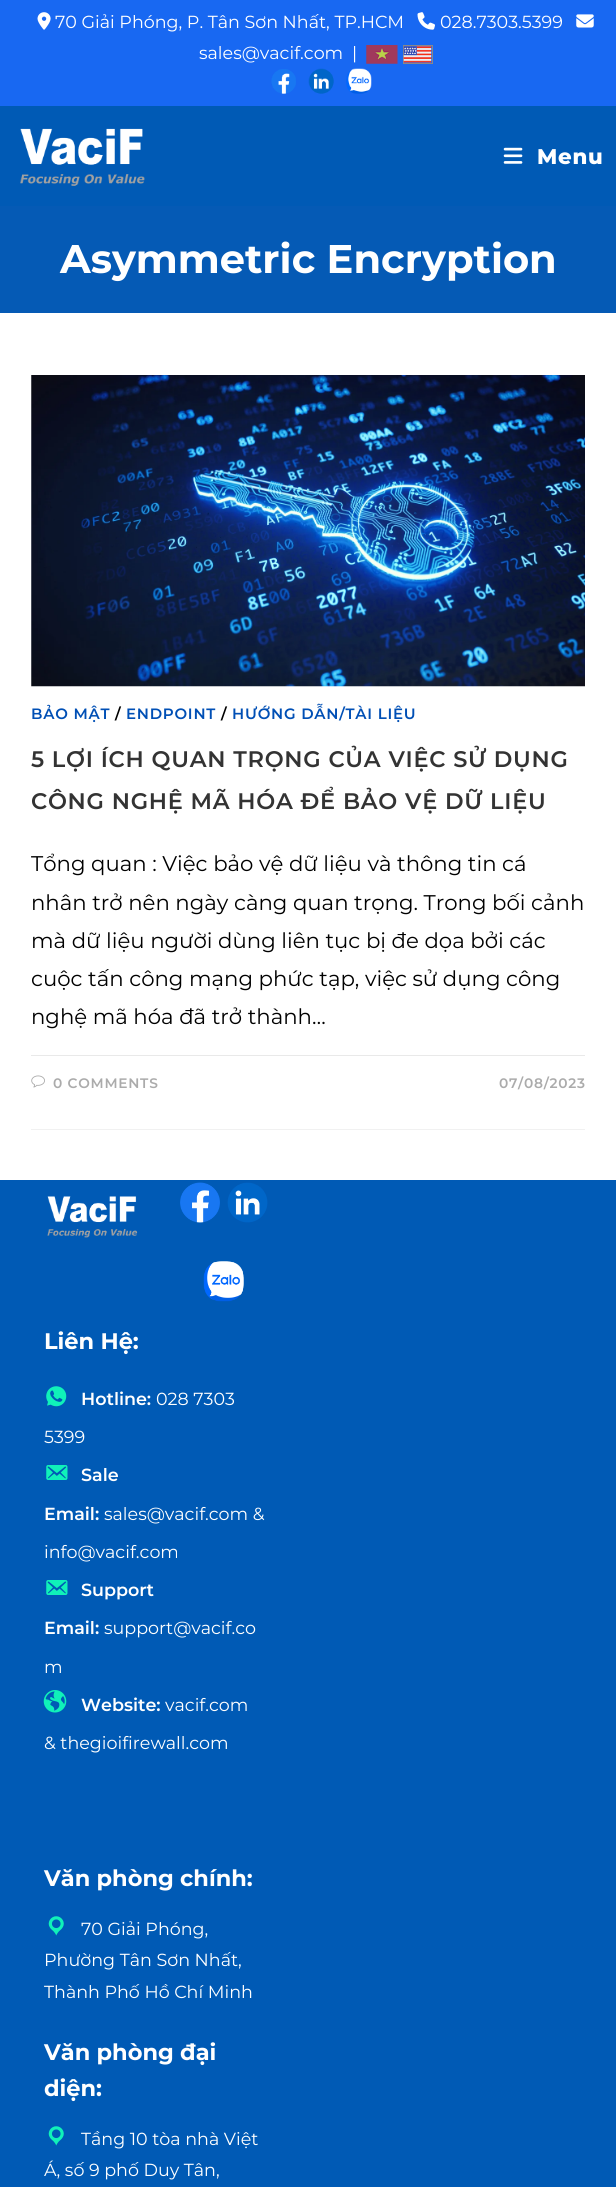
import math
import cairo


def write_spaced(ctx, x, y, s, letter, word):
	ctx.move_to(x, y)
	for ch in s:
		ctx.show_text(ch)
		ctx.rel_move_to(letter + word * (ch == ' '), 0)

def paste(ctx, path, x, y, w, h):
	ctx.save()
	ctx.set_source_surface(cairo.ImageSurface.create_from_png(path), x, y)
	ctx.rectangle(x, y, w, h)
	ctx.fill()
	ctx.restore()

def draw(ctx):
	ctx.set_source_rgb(1, 1, 1)
	ctx.paint()
	ctx.set_source_rgb(0.094, 0.408, 0.949)
	ctx.rectangle(0, 0, 616, 106)
	ctx.fill()
	paste(ctx, 'media/1.png', 37, 12, 14, 18)
	ctx.select_font_face('Montserrat')
	ctx.set_font_size(17.5)
	ctx.set_source_rgb(1, 1, 1)
	ctx.move_to(55, 28)
	ctx.show_text('70 Giải Phóng, P. Tân Sơn Nhất, TP.HCM')
	paste(ctx, 'media/2.png', 417, 12, 18, 18)
	ctx.move_to(440, 28)
	ctx.show_text('028.7303.5399')
	paste(ctx, 'media/3.png', 576, 14, 18, 14)
	ctx.move_to(199, 59)
	ctx.show_text('sales@vacif.com')
	ctx.move_to(352, 59)
	ctx.show_text('|')
	paste(ctx, 'media/4.png', 366, 45, 32, 19)
	ctx.rectangle(403.5, 45.5, 29, 18)
	ctx.set_source_rgb(0.533, 0.533, 0.533)
	ctx.set_line_width(1)
	ctx.stroke()
	paste(ctx, 'media/5.png', 403, 46, 29, 17)
	paste(ctx, 'media/6.png', 271, 69, 25, 25)
	paste(ctx, 'media/7.png', 308, 68, 26, 26)
	paste(ctx, 'media/8.png', 346, 68, 26, 26)
	ctx.set_source_rgb(0, 0.353, 0.71)
	ctx.rectangle(0, 106, 616, 100)
	ctx.fill()
	paste(ctx, 'media/9.png', 20, 128, 125, 58)
	paste(ctx, 'media/10.png', 503, 147, 20, 17)
	ctx.select_font_face('Montserrat ExtraBold')
	ctx.set_font_size(21.25)
	ctx.set_source_rgb(1, 1, 1)
	write_spaced(ctx, 537, 164, 'Menu', 0.75, 0)
	ctx.set_source_rgb(0.02, 0.353, 0.71)
	ctx.rectangle(0, 206, 616, 107)
	ctx.fill()
	ctx.select_font_face('Montserrat', cairo.FONT_SLANT_NORMAL, cairo.FONT_WEIGHT_BOLD)
	ctx.set_font_size(40)
	ctx.set_source_rgb(1, 1, 1)
	ctx.move_to(60, 273)
	ctx.show_text('Asymmetric Encryption')
	ctx.set_source_rgb(0.945, 0.945, 0.945)
	ctx.rectangle(31, 1129, 554, 1)
	ctx.fill()
	paste(ctx, 'media/11.png', 31, 375, 554, 312)
	ctx.select_font_face('Montserrat SemiBold')
	ctx.set_font_size(15)
	ctx.set_source_rgb(0, 0.31, 0.71)
	write_spaced(ctx, 31, 719, 'BẢO MẬT', 0.75, 0)
	ctx.set_source_rgb(0, 0, 0)
	write_spaced(ctx, 115, 719, '/', 0.75, 0)
	ctx.set_source_rgb(0, 0.31, 0.71)
	write_spaced(ctx, 126, 719, 'ENDPOINT', 0.75, 0)
	ctx.set_source_rgb(0, 0, 0)
	write_spaced(ctx, 221, 719, '/', 0.75, 0)
	ctx.set_source_rgb(0, 0.31, 0.71)
	write_spaced(ctx, 232, 719, 'HƯỚNG DẪN/TÀI LIỆU', 0.75, 0)
	ctx.set_font_size(22.5)
	ctx.set_source_rgb(0.2, 0.2, 0.2)
	write_spaced(ctx, 31, 767, '5 LỢI ÍCH QUAN TRỌNG CỦA VIỆC SỬ DỤNG', 0.75, 0)
	write_spaced(ctx, 31, 809, 'CÔNG NGHỆ MÃ HÓA ĐỂ BẢO VỆ DỮ LIỆU', 0.75, 0)
	ctx.select_font_face('Montserrat')
	ctx.set_font_size(21.25)
	ctx.set_source_rgb(0, 0, 0)
	for x, y, s in [
		(31, 871, 'Tổng quan : Việc bảo vệ dữ liệu và thông tin cá'),
		(31, 910, 'nhân trở nên ngày càng quan trọng. Trong bối cảnh'),
		(31, 948, 'mà dữ liệu người dùng liên tục bị đe dọa bởi các'),
		(31, 986, 'cuộc tấn công mạng phức tạp, việc sử dụng công'),
		(31, 1024, 'nghệ mã hóa đã trở thành…'),
	]:
		ctx.move_to(x, y)
		ctx.show_text(s)
	ctx.set_source_rgb(0.914, 0.914, 0.914)
	ctx.rectangle(31, 1055, 554, 1)
	ctx.fill()
	paste(ctx, 'media/12.png', 31, 1075, 14, 13)
	ctx.select_font_face('Montserrat SemiBold')
	ctx.set_font_size(13.75)
	ctx.set_source_rgb(0.671, 0.671, 0.671)
	write_spaced(ctx, 53, 1088, '0 COMMENTS', 0.75, 0)
	write_spaced(ctx, 499, 1088, '07/08/2023', 0.75, 0)
	ctx.set_source_rgb(0, 0.353, 0.71)
	ctx.rectangle(0, 1180, 616, 1007)
	ctx.fill()
	paste(ctx, 'media/13.png', 47, 1196, 91, 42)
	paste(ctx, 'media/14.png', 180, 1182, 40, 41)
	paste(ctx, 'media/15.png', 227, 1182, 41, 41)
	paste(ctx, 'media/16.png', 203, 1261, 41, 41)
	ctx.select_font_face('Montserrat', cairo.FONT_SLANT_NORMAL, cairo.FONT_WEIGHT_BOLD)
	ctx.set_font_size(22.5)
	ctx.set_source_rgb(1, 1, 1)
	ctx.move_to(44, 1349)
	ctx.show_text('Liên Hệ:')
	paste(ctx, 'media/17.png', 46, 1386, 21, 21)
	ctx.select_font_face('Montserrat SemiBold')
	ctx.set_font_size(17.5)
	ctx.move_to(81, 1405)
	ctx.show_text('Hotline:')
	ctx.select_font_face('Montserrat')
	ctx.move_to(156, 1405)
	ctx.show_text('028 7303')
	ctx.move_to(44, 1443)
	ctx.show_text('5399')
	paste(ctx, 'media/18.png', 46, 1465, 22, 15)
	ctx.select_font_face('Montserrat SemiBold')
	ctx.move_to(81, 1481)
	ctx.show_text('Sale')
	ctx.move_to(44, 1520)
	ctx.show_text('Email:')
	ctx.select_font_face('Montserrat')
	ctx.move_to(104, 1520)
	ctx.show_text('sales@vacif.com &')
	ctx.move_to(44, 1558)
	ctx.show_text('info@vacif.com')
	paste(ctx, 'media/18.png', 46, 1580, 22, 15)
	ctx.select_font_face('Montserrat SemiBold')
	ctx.move_to(81, 1596)
	ctx.show_text('Support')
	ctx.move_to(44, 1634)
	ctx.show_text('Email:')
	ctx.select_font_face('Montserrat')
	ctx.move_to(104, 1634)
	ctx.show_text('support@vacif.co')
	ctx.move_to(44, 1673)
	ctx.show_text('m')
	paste(ctx, 'media/19.png', 43, 1690, 24, 23)
	ctx.select_font_face('Montserrat SemiBold')
	ctx.move_to(81, 1711)
	ctx.show_text('Website:')
	ctx.select_font_face('Montserrat')
	ctx.move_to(165, 1711)
	ctx.show_text('vacif.com')
	ctx.move_to(44, 1749)
	ctx.show_text('& thegioifirewall.com')
	ctx.select_font_face('Montserrat', cairo.FONT_SLANT_NORMAL, cairo.FONT_WEIGHT_BOLD)
	ctx.set_font_size(22.5)
	ctx.move_to(44, 1886)
	ctx.show_text('Văn phòng chính:')
	paste(ctx, 'media/20.png', 48, 1916, 16, 20)
	ctx.select_font_face('Montserrat')
	ctx.set_font_size(17.5)
	for x, y, s in [
		(81, 1935, '70 Giải Phóng,'),
		(44, 1966, 'Phường Tân Sơn Nhất,'),
		(44, 1998, 'Thành Phố Hồ Chí Minh'),
	]:
		ctx.move_to(x, y)
		ctx.show_text(s)
	ctx.select_font_face('Montserrat', cairo.FONT_SLANT_NORMAL, cairo.FONT_WEIGHT_BOLD)
	ctx.set_font_size(22.5)
	ctx.move_to(44, 2060)
	ctx.show_text('Văn phòng đại')
	ctx.move_to(44, 2096)
	ctx.show_text('diện:')
	paste(ctx, 'media/20.png', 48, 2126, 16, 20)
	ctx.select_font_face('Montserrat')
	ctx.set_font_size(17.5)
	ctx.move_to(81, 2145)
	ctx.show_text('Tầng 10 tòa nhà Việt')
	ctx.move_to(44, 2176)
	ctx.show_text('Á, số 9 phố Duy Tân,')


surface = cairo.ImageSurface(cairo.FORMAT_RGB24, 616, 2187)
ctx = cairo.Context(surface)
options = cairo.FontOptions()
options.set_hint_metrics(cairo.HINT_METRICS_OFF)
options.set_hint_style(cairo.HINT_STYLE_NONE)
ctx.set_font_options(options)
ctx.set_miter_limit(4)
draw(ctx)
surface.write_to_png('image.png')
